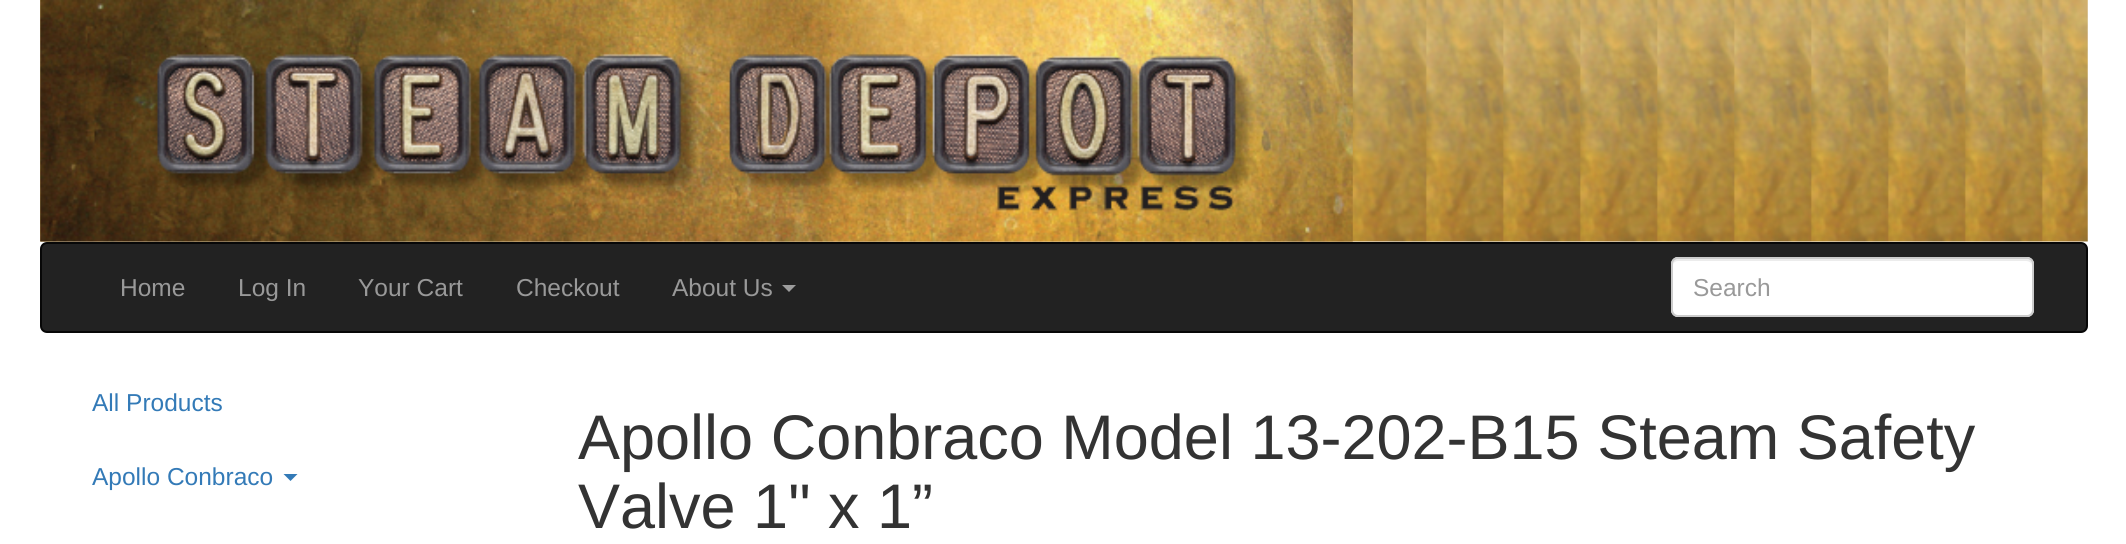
import math
import cairo


def round_path(ctx, x, y, w, h, r):
	ctx.new_sub_path()
	for i, (u, v) in enumerate([(x + w - r, y + h - r), (x + r, y + h - r), (x + r, y + r), (x + w - r, y + r)]):
		ctx.arc(u, v, r, i * math.pi / 2, (i + 1) * math.pi / 2)
	ctx.close_path()

def paste(ctx, path, x, y, w, h):
	ctx.save()
	ctx.set_source_surface(cairo.ImageSurface.create_from_png(path), x, y)
	ctx.rectangle(x, y, w, h)
	ctx.fill()
	ctx.restore()

def draw(ctx):
	ctx.set_source_rgb(1, 1, 1)
	ctx.paint()
	paste(ctx, 'media/1.png', 40, 0, 2048, 242)
	paste(ctx, 'media/2.png', 40, 0, 1313, 242)
	ctx.set_source_rgb(0.133, 0.133, 0.133)
	round_path(ctx, 41, 243, 2046, 89, 6)
	ctx.fill_preserve()
	ctx.set_source_rgb(0.031, 0.031, 0.031)
	ctx.stroke()
	ctx.select_font_face('Liberation Sans')
	ctx.set_font_size(24.5)
	ctx.set_source_rgb(0.6, 0.6, 0.6)
	for x, y, s in [
		(120, 296, 'Home'),
		(238, 296, 'Log In'),
		(358, 296, 'Your Cart'),
		(516, 296, 'Checkout'),
		(672, 296, 'About Us'),
	]:
		ctx.move_to(x, y)
		ctx.show_text(s)
	ctx.set_source_rgb(0.616, 0.616, 0.616)
	ctx.new_path()
	ctx.move_to(782, 285)
	ctx.line_to(796, 285)
	ctx.line_to(789, 292)
	ctx.close_path()
	ctx.fill()
	ctx.set_source_rgb(1, 1, 1)
	round_path(ctx, 1671, 257, 363, 60, 7)
	ctx.fill()
	ctx.set_source_rgb(0.925, 0.925, 0.925)
	ctx.new_path()
	ctx.move_to(1678, 261)
	ctx.line_to(2026, 261)
	ctx.curve_to(2029, 261, 2032, 263, 2032, 266)
	ctx.curve_to(2032, 263, 2031, 259, 2027, 259)
	ctx.line_to(1678, 259)
	ctx.curve_to(1674, 259, 1673, 263, 1673, 266)
	ctx.curve_to(1673, 263, 1675, 261, 1678, 261)
	ctx.close_path()
	ctx.fill()
	round_path(ctx, 1672, 258, 361, 58, 6)
	ctx.set_source_rgb(0.8, 0.8, 0.8)
	ctx.stroke()
	ctx.set_source_rgb(0.6, 0.6, 0.6)
	ctx.move_to(1693, 296)
	ctx.show_text('Search')
	ctx.set_source_rgb(0.2, 0.478, 0.718)
	ctx.move_to(92, 411)
	ctx.show_text('All Products')
	ctx.move_to(92, 485)
	ctx.show_text('Apollo Conbraco')
	ctx.new_path()
	ctx.move_to(283.5, 474)
	ctx.line_to(297.5, 474)
	ctx.line_to(290.5, 481)
	ctx.close_path()
	ctx.fill()
	ctx.set_font_size(63)
	ctx.set_source_rgb(0.2, 0.2, 0.2)
	ctx.move_to(578, 459)
	ctx.show_text('Apollo Conbraco Model 13-202-B15 Steam Safety')
	ctx.move_to(578, 528)
	ctx.show_text('Valve 1" x 1”')


surface = cairo.ImageSurface(cairo.FORMAT_RGB24, 2126, 544)
ctx = cairo.Context(surface)
options = cairo.FontOptions()
options.set_hint_metrics(cairo.HINT_METRICS_OFF)
options.set_hint_style(cairo.HINT_STYLE_NONE)
ctx.set_font_options(options)
ctx.set_miter_limit(4)
draw(ctx)
surface.write_to_png('image.png')
